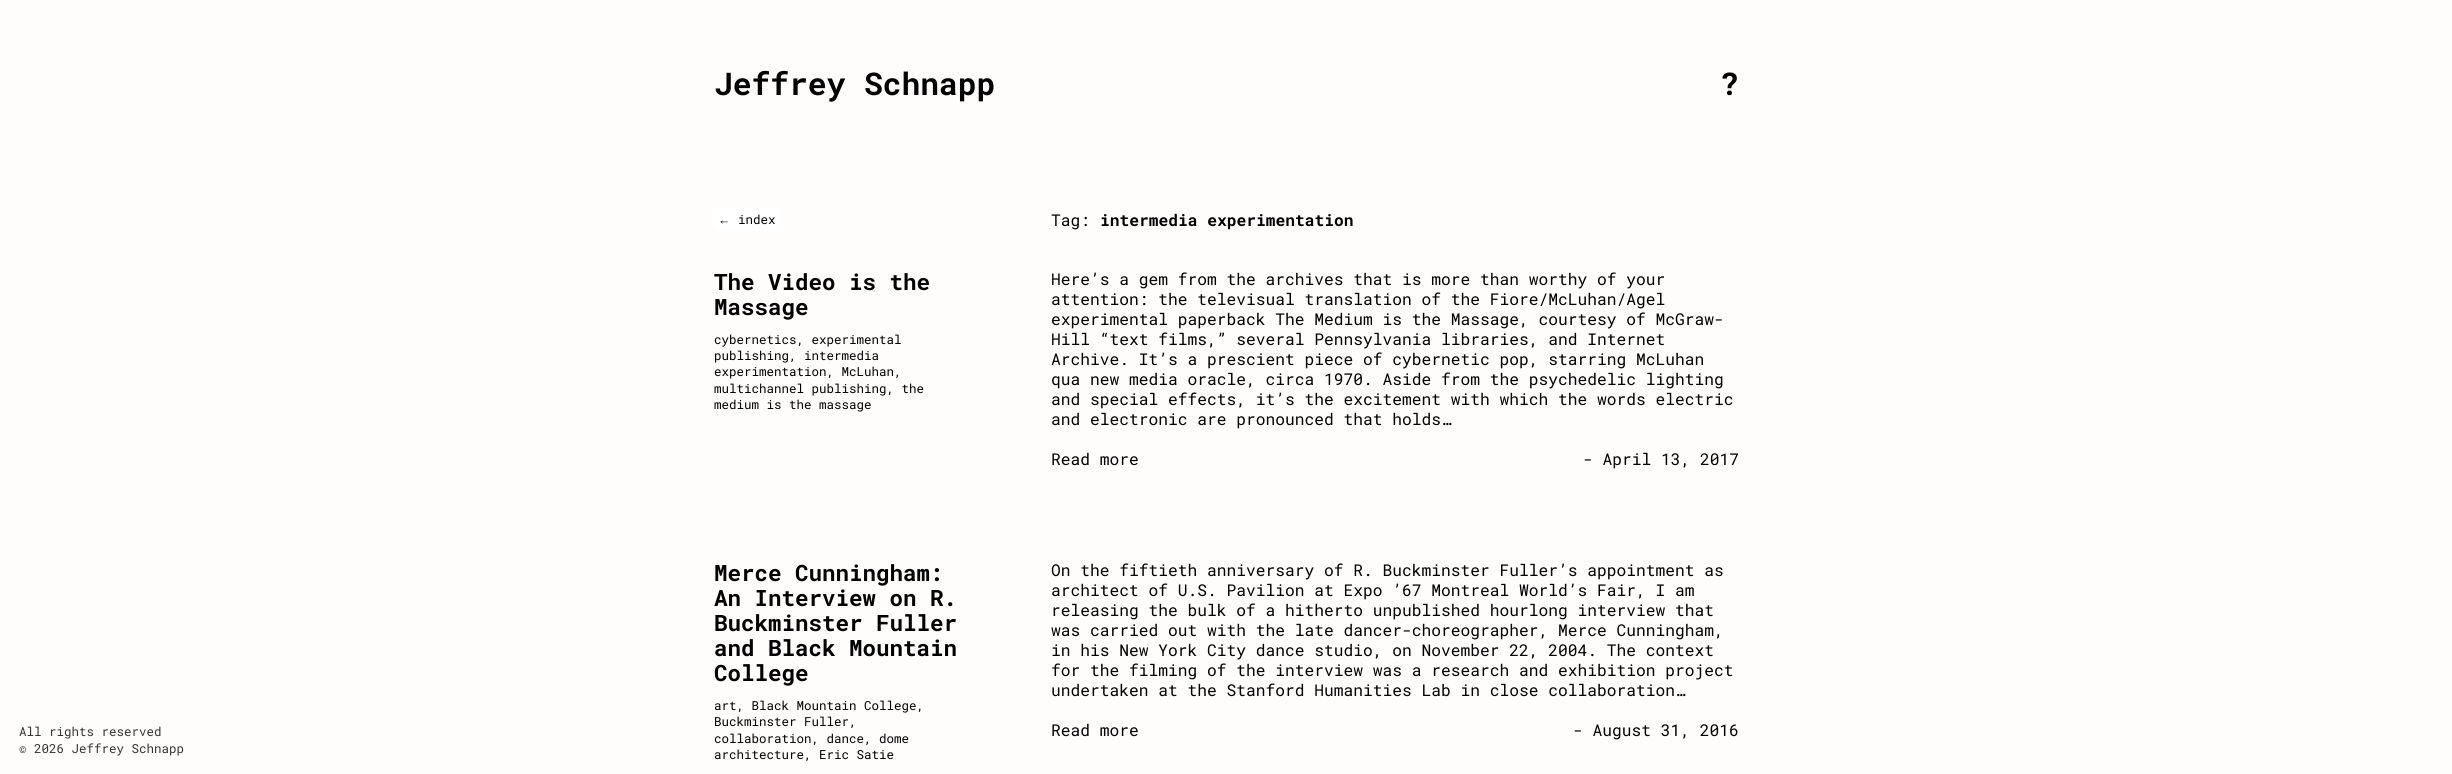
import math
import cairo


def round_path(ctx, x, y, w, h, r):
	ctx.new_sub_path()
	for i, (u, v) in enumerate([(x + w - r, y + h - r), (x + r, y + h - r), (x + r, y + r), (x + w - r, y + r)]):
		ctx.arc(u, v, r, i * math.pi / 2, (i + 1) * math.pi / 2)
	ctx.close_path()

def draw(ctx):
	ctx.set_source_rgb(1, 0.988, 0.988)
	ctx.paint()
	ctx.select_font_face('Roboto Mono', cairo.FONT_SLANT_NORMAL, cairo.FONT_WEIGHT_BOLD)
	ctx.set_font_size(31.25)
	ctx.set_source_rgb(0, 0, 0)
	ctx.move_to(714, 95)
	ctx.show_text('Jeffrey Schnapp')
	ctx.move_to(1720, 95)
	ctx.show_text('?')
	ctx.select_font_face('Roboto Mono')
	ctx.set_font_size(12.5)
	ctx.set_source_rgb(0.2, 0.2, 0.2)
	ctx.move_to(19, 736)
	ctx.show_text('All rights reserved')
	ctx.move_to(19, 753)
	ctx.show_text('© 2026 Jeffrey Schnapp')
	ctx.set_source_rgb(1, 1, 1)
	round_path(ctx, 714, 208, 65, 23, 2.5)
	ctx.fill()
	ctx.select_font_face('Liberation Serif')
	ctx.set_source_rgb(0, 0, 0)
	ctx.move_to(718, 224)
	ctx.show_text('←')
	ctx.select_font_face('Roboto Mono')
	ctx.move_to(738, 224)
	ctx.show_text('index')
	ctx.set_font_size(16.25)
	ctx.move_to(1051, 226)
	ctx.show_text('Tag:')
	ctx.select_font_face('Roboto Mono', cairo.FONT_SLANT_NORMAL, cairo.FONT_WEIGHT_BOLD)
	ctx.move_to(1100, 226)
	ctx.show_text('intermedia experimentation')
	ctx.set_font_size(22.5)
	ctx.move_to(714, 290)
	ctx.show_text('The Video is the')
	ctx.move_to(714, 315)
	ctx.show_text('Massage')
	ctx.select_font_face('Roboto Mono')
	ctx.set_font_size(12.5)
	for x, y, s in [
		(714, 344, 'cybernetics, experimental'),
		(714, 360, 'publishing, intermedia'),
		(714, 376, 'experimentation, McLuhan,'),
		(714, 393, 'multichannel publishing, the'),
		(714, 409, 'medium is the massage'),
	]:
		ctx.move_to(x, y)
		ctx.show_text(s)
	ctx.set_font_size(16.25)
	for x, y, s in [
		(1051, 285, 'Here’s a gem from the archives that is more than worthy of your'),
		(1051, 305, 'attention: the televisual translation of the Fiore/McLuhan/Agel'),
		(1051, 325, 'experimental paperback The Medium is the Massage, courtesy of McGraw-'),
		(1051, 345, 'Hill “text films,” several Pennsylvania libraries, and Internet'),
		(1051, 365, 'Archive. It’s a prescient piece of cybernetic pop, starring McLuhan'),
		(1051, 385, 'qua new media oracle, circa 1970. Aside from the psychedelic lighting'),
		(1051, 405, 'and special effects, it’s the excitement with which the words electric'),
		(1051, 425, 'and electronic are pronounced that holds…'),
		(1051, 465, 'Read more'),
		(1583, 465, '- April 13, 2017'),
	]:
		ctx.move_to(x, y)
		ctx.show_text(s)
	ctx.select_font_face('Roboto Mono', cairo.FONT_SLANT_NORMAL, cairo.FONT_WEIGHT_BOLD)
	ctx.set_font_size(22.5)
	for x, y, s in [
		(714, 581, 'Merce Cunningham:'),
		(714, 606, 'An Interview on R.'),
		(714, 631, 'Buckminster Fuller'),
		(714, 656, 'and Black Mountain'),
		(714, 681, 'College'),
	]:
		ctx.move_to(x, y)
		ctx.show_text(s)
	ctx.select_font_face('Roboto Mono')
	ctx.set_font_size(12.5)
	for x, y, s in [
		(714, 710, 'art, Black Mountain College,'),
		(714, 726, 'Buckminster Fuller,'),
		(714, 743, 'collaboration, dance, dome'),
		(714, 759, 'architecture, Eric Satie'),
	]:
		ctx.move_to(x, y)
		ctx.show_text(s)
	ctx.set_font_size(16.25)
	for x, y, s in [
		(1051, 576, 'On the fiftieth anniversary of R. Buckminster Fuller’s appointment as'),
		(1051, 596, 'architect of U.S. Pavilion at Expo ’67 Montreal World’s Fair, I am'),
		(1051, 616, 'releasing the bulk of a hitherto unpublished hourlong interview that'),
		(1051, 636, 'was carried out with the late dancer-choreographer, Merce Cunningham,'),
		(1051, 656, 'in his New York City dance studio, on November 22, 2004. The context'),
		(1051, 676, 'for the filming of the interview was a research and exhibition project'),
		(1051, 696, 'undertaken at the Stanford Humanities Lab in close collaboration…'),
		(1051, 736, 'Read more'),
		(1573, 736, '- August 31, 2016'),
	]:
		ctx.move_to(x, y)
		ctx.show_text(s)


surface = cairo.ImageSurface(cairo.FORMAT_RGB24, 2452, 774)
ctx = cairo.Context(surface)
options = cairo.FontOptions()
options.set_hint_metrics(cairo.HINT_METRICS_OFF)
options.set_hint_style(cairo.HINT_STYLE_NONE)
ctx.set_font_options(options)
ctx.set_miter_limit(4)
draw(ctx)
surface.write_to_png('image.png')
